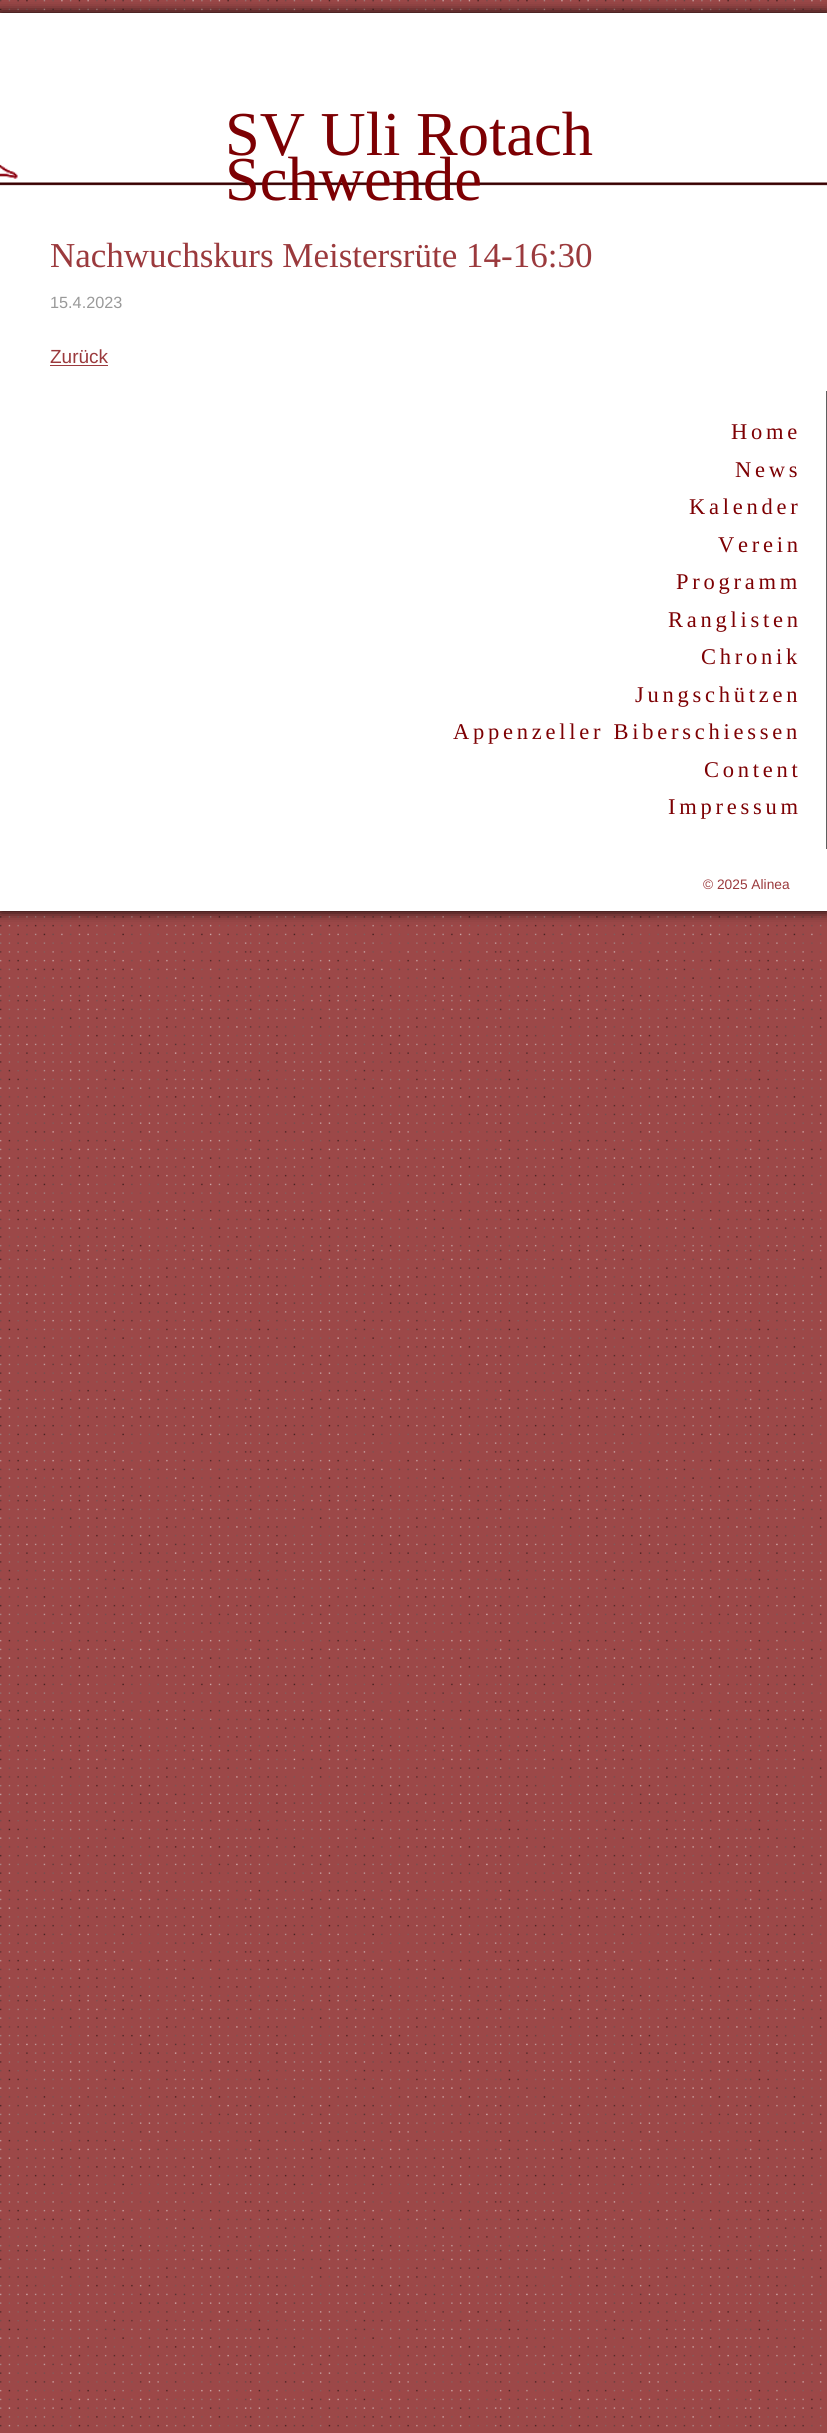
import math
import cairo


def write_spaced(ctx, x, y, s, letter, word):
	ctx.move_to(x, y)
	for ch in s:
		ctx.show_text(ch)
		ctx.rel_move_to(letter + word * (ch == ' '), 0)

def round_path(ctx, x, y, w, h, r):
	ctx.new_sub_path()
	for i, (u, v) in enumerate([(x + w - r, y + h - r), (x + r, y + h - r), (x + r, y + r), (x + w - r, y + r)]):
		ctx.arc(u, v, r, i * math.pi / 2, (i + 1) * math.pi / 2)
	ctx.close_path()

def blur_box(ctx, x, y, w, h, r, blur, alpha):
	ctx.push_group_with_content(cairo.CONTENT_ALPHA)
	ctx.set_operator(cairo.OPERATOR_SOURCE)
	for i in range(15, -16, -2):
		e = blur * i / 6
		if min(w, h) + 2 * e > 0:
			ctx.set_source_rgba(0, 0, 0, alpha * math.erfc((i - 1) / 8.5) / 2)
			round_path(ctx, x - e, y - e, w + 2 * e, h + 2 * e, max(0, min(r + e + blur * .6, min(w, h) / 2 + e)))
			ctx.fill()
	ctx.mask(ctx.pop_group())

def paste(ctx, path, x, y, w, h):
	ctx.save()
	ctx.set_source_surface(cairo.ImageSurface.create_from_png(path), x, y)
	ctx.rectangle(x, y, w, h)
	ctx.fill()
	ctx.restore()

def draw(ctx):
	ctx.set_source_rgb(1, 1, 1)
	ctx.paint()
	paste(ctx, 'media/1.png', 0, 0, 827, 2433)
	ctx.set_source_rgb(0, 0, 0)
	blur_box(ctx, 0, 13, 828, 898, 0, 6, 1)
	ctx.set_source_rgb(1, 1, 1)
	ctx.rectangle(0, 13, 827, 898)
	ctx.fill()
	paste(ctx, 'media/2.png', 0, 164, 827, 22)
	ctx.select_font_face('Liberation Serif')
	ctx.set_font_size(62.5)
	ctx.set_source_rgb(0.49, 0, 0.012)
	ctx.move_to(225, 155)
	ctx.show_text('SV Uli Rotach')
	ctx.move_to(225, 200)
	ctx.show_text('Schwende')
	ctx.set_font_size(35)
	ctx.set_source_rgb(0.608, 0.227, 0.239)
	ctx.move_to(50, 267)
	ctx.show_text('Nachwuchskurs Meistersrüte 14-16:30')
	ctx.select_font_face('Liberation Sans')
	ctx.set_font_size(16.25)
	ctx.set_source_rgb(0.6, 0.6, 0.6)
	ctx.move_to(50, 308)
	ctx.show_text('15.4.2023')
	ctx.set_font_size(19)
	ctx.set_source_rgb(0.608, 0.227, 0.239)
	ctx.move_to(50, 363)
	ctx.show_text('Zurück')
	ctx.rectangle(50, 365, 58, 1)
	ctx.fill()
	ctx.set_source_rgb(0.373, 0.373, 0.373)
	ctx.rectangle(826, 391, 1, 458)
	ctx.fill()
	ctx.select_font_face('Liberation Serif')
	ctx.set_font_size(22.5)
	ctx.set_source_rgb(0.49, 0, 0.012)
	for x, y, s in [
		(731, 439, 'Home'),
		(735, 477, 'News'),
		(689, 514, 'Kalender'),
		(718, 552, 'Verein'),
		(676, 589, 'Programm'),
		(668, 627, 'Ranglisten'),
		(701, 664, 'Chronik'),
		(635, 702, 'Jungschützen'),
		(453, 739, 'Appenzeller Biberschiessen'),
		(704, 777, 'Content'),
		(668, 814, 'Impressum'),
	]:
		write_spaced(ctx, x, y, s, 3.75, 0)
	ctx.select_font_face('Liberation Sans')
	ctx.set_font_size(13.75)
	ctx.set_source_rgb(0.608, 0.227, 0.239)
	ctx.move_to(703, 889)
	ctx.show_text('© 2025 Alinea')


surface = cairo.ImageSurface(cairo.FORMAT_RGB24, 827, 2433)
ctx = cairo.Context(surface)
options = cairo.FontOptions()
options.set_hint_metrics(cairo.HINT_METRICS_OFF)
options.set_hint_style(cairo.HINT_STYLE_NONE)
ctx.set_font_options(options)
ctx.set_miter_limit(4)
draw(ctx)
surface.write_to_png('image.png')
